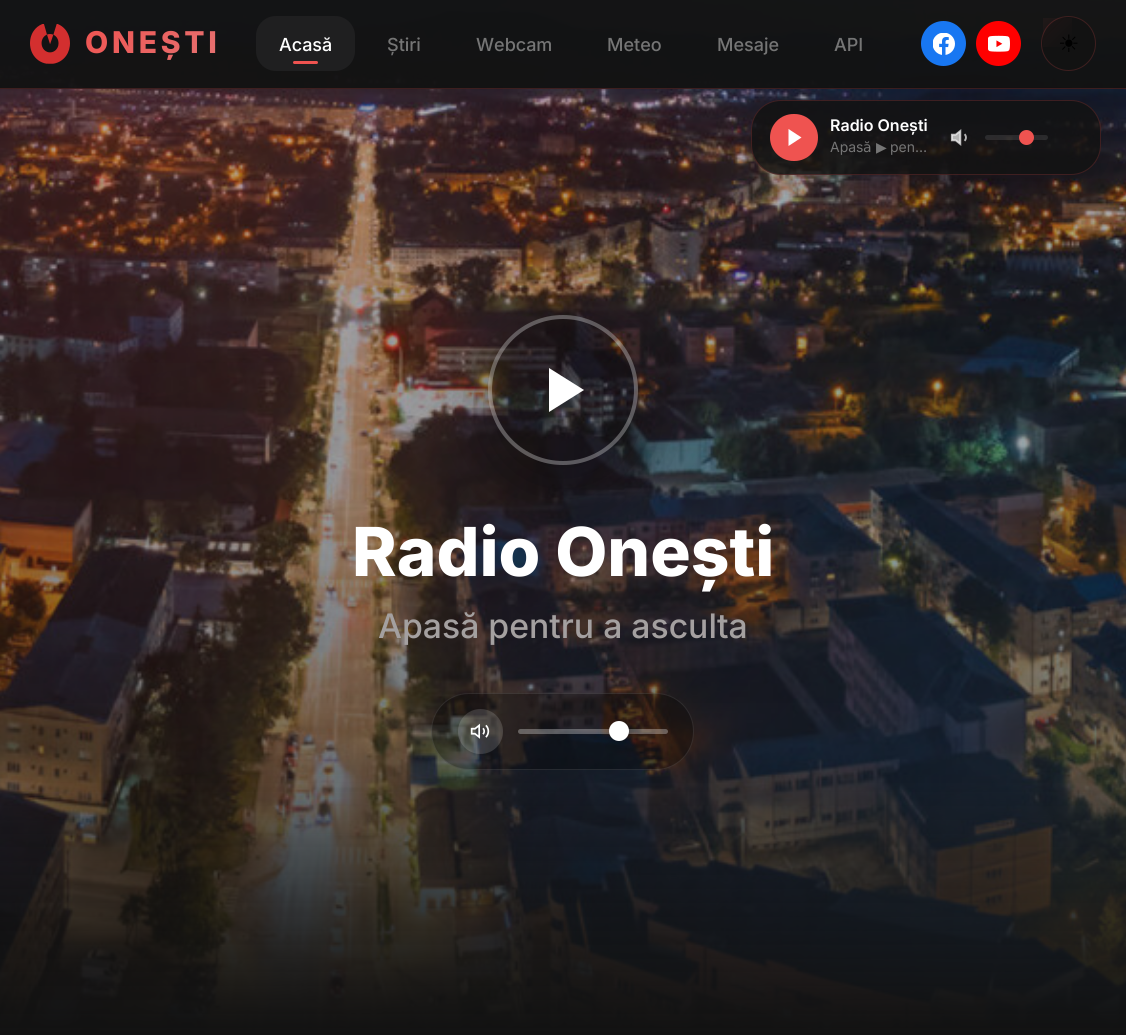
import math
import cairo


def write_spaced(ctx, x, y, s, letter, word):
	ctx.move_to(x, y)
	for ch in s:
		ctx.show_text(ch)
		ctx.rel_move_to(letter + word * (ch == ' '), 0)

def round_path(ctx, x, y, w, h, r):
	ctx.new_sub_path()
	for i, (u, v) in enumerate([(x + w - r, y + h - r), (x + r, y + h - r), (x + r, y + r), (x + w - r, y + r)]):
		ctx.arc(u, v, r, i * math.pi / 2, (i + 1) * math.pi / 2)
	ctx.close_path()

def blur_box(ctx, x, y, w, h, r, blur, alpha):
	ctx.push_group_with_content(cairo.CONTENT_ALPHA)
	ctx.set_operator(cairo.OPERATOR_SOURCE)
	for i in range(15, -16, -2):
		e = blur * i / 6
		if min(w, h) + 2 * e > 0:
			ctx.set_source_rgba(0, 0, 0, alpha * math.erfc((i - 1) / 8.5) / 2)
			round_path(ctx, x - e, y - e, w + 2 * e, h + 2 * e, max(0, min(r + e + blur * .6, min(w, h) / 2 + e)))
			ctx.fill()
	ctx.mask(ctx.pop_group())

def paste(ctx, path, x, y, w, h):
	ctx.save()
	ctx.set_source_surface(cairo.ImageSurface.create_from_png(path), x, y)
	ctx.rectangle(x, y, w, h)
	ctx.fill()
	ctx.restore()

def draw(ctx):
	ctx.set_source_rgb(1, 1, 1)
	ctx.paint()
	paste(ctx, 'media/4.png', 0, 0, 1126, 1035)
	ctx.set_source_rgba(0.071, 0.071, 0.071, 0.95)
	ctx.rectangle(0, 0, 1126, 89)
	ctx.fill()
	ctx.set_source_rgba(0.937, 0.325, 0.314, 0.2)
	ctx.rectangle(0, 88, 1126, 1)
	ctx.fill()
	paste(ctx, 'media/1.png', 30, 24, 40, 40)
	ctx.select_font_face('Inter ExtraBold')
	ctx.set_font_size(30)
	gradient = cairo.LinearGradient(107, -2.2, 199, 90)
	gradient.add_color_stop_rgba(0, 0.937, 0.325, 0.314, 1)
	gradient.add_color_stop_rgba(1, 0.898, 0.451, 0.451, 1)
	ctx.set_source(gradient)
	write_spaced(ctx, 85, 53, 'ONEȘTI', 3.75, 0)
	ctx.set_source_rgb(0.122, 0.122, 0.125)
	round_path(ctx, 256, 16, 99, 55, 20)
	ctx.fill()
	ctx.select_font_face('Inter Medium')
	ctx.set_font_size(18)
	ctx.set_source_rgb(1, 1, 1)
	ctx.move_to(279, 51)
	ctx.show_text('Acasă')
	ctx.set_source_rgb(0.937, 0.325, 0.314)
	round_path(ctx, 293, 61, 25, 3, 1.5)
	ctx.fill()
	ctx.set_source_rgb(0.459, 0.459, 0.459)
	for x, y, s in [
		(387, 51, 'Știri'),
		(476, 51, 'Webcam'),
		(607, 51, 'Meteo'),
		(717, 51, 'Mesaje'),
		(834, 51, 'API'),
	]:
		ctx.move_to(x, y)
		ctx.show_text(s)
	ctx.set_source_rgb(0.094, 0.467, 0.949)
	ctx.new_path()
	ctx.arc(943.5, 43.5, 22.5, 0, 2 * math.pi)
	ctx.fill()
	paste(ctx, 'media/2.png', 933, 33, 22, 22)
	ctx.set_source_rgb(1, 0, 0)
	ctx.arc(998.5, 43.5, 22.5, 0, 2 * math.pi)
	ctx.fill()
	paste(ctx, 'media/3.png', 988, 35, 22, 17)
	ctx.set_source_rgba(0.071, 0.071, 0.071, 0.85)
	ctx.arc(1068.5, 43.5, 27, 0, 2 * math.pi)
	ctx.fill_preserve()
	ctx.set_source_rgb(0.243, 0.122, 0.122)
	ctx.set_line_width(1)
	ctx.stroke()
	gradient = cairo.LinearGradient(1043, 18, 1095, 70)
	gradient.add_color_stop_rgba(0, 0.937, 0.325, 0.314, 0.05)
	gradient.add_color_stop_rgba(0.5, 0.937, 0.325, 0.314, 0)
	ctx.set_source(gradient)
	ctx.rectangle(1043, 18, 29, 29)
	ctx.fill()
	ctx.select_font_face('DejaVu Sans')
	ctx.set_font_size(24)
	ctx.set_source_rgb(0, 0, 0)
	ctx.move_to(1058, 52)
	ctx.show_text('☀')
	ctx.save()
	ctx.set_fill_rule(cairo.FILL_RULE_EVEN_ODD)
	ctx.new_path()
	ctx.move_to(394, 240)
	ctx.line_to(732, 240)
	ctx.line_to(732, 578)
	ctx.line_to(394, 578)
	ctx.close_path()
	ctx.move_to(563, 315)
	ctx.curve_to(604.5, 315, 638, 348.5, 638, 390)
	ctx.curve_to(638, 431.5, 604.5, 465, 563, 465)
	ctx.curve_to(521.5, 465, 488, 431.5, 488, 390)
	ctx.curve_to(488, 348.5, 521.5, 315, 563, 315)
	ctx.close_path()
	ctx.clip()
	ctx.set_source_rgb(0, 0, 0)
	blur_box(ctx, 488, 334, 150, 150, 75, 31, 0.4)
	ctx.restore()
	ctx.set_source_rgba(0, 0, 0, 0.3)
	ctx.arc(563, 390, 75, 0, 2 * math.pi)
	ctx.fill()
	ctx.arc(563, 390, 73, 0, 2 * math.pi)
	ctx.set_source_rgba(1, 1, 1, 0.3)
	ctx.set_line_width(4)
	ctx.stroke()
	ctx.set_source_rgb(1, 1, 1)
	ctx.new_path()
	ctx.move_to(549, 368)
	ctx.line_to(584, 390)
	ctx.line_to(549, 412)
	ctx.close_path()
	ctx.fill()
	ctx.select_font_face('Inter ExtraBold')
	ctx.set_font_size(67.5)
	ctx.move_to(352, 576)
	ctx.show_text('Radio Onești')
	ctx.select_font_face('Inter Medium')
	ctx.set_font_size(33.75)
	ctx.set_source_rgb(0.643, 0.627, 0.627)
	ctx.move_to(378, 638)
	ctx.show_text('Apasă pentru a asculta')
	ctx.set_source_rgba(0, 0, 0, 0.3)
	round_path(ctx, 431, 693, 263, 77, 38)
	ctx.fill()
	round_path(ctx, 431.5, 693.5, 262, 76, 37.5)
	ctx.set_source_rgba(1, 1, 1, 0.1)
	ctx.set_line_width(1)
	ctx.stroke()
	ctx.set_source_rgba(1, 1, 1, 0.15)
	ctx.arc(480.5, 731.5, 22.5, 0, 2 * math.pi)
	ctx.fill()
	paste(ctx, 'media/5.png', 470, 723, 20, 16)
	ctx.set_source_rgba(1, 1, 1, 0.3)
	round_path(ctx, 518, 729, 150, 5, 2.5)
	ctx.fill()
	ctx.set_source_rgb(0, 0, 0)
	blur_box(ctx, 609, 724, 20, 20, 10, 6, 0.3)
	ctx.set_source_rgb(1, 1, 1)
	ctx.arc(619, 731, 10, 0, 2 * math.pi)
	ctx.fill()
	ctx.save()
	ctx.set_fill_rule(cairo.FILL_RULE_EVEN_ODD)
	ctx.new_path()
	ctx.move_to(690, 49)
	ctx.line_to(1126, 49)
	ctx.line_to(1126, 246)
	ctx.line_to(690, 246)
	ctx.close_path()
	ctx.move_to(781, 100)
	ctx.line_to(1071, 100)
	ctx.curve_to(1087.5, 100, 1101, 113.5, 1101, 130)
	ctx.line_to(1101, 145)
	ctx.curve_to(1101, 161.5, 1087.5, 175, 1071, 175)
	ctx.line_to(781, 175)
	ctx.curve_to(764.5, 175, 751, 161.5, 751, 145)
	ctx.line_to(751, 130)
	ctx.curve_to(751, 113.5, 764.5, 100, 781, 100)
	ctx.close_path()
	ctx.clip()
	ctx.set_source_rgb(0, 0, 0)
	blur_box(ctx, 751, 110, 350, 75, 30, 20, 0.2)
	ctx.restore()
	ctx.set_source_rgba(0.071, 0.071, 0.071, 0.85)
	round_path(ctx, 751, 100, 350, 75, 30)
	ctx.fill()
	round_path(ctx, 751.5, 100.5, 349, 74, 29.5)
	ctx.set_source_rgba(0.937, 0.325, 0.314, 0.2)
	ctx.stroke()
	ctx.set_source_rgb(0.937, 0.325, 0.314)
	round_path(ctx, 770, 114, 48, 47, 23.5)
	ctx.fill()
	ctx.set_source_rgb(1, 1, 1)
	ctx.new_path()
	ctx.move_to(788.5, 129)
	ctx.line_to(801.5, 137.5)
	ctx.line_to(788.5, 146)
	ctx.close_path()
	ctx.fill()
	ctx.select_font_face('Inter SemiBold')
	ctx.set_font_size(16)
	ctx.move_to(830, 131)
	ctx.show_text('Radio Onești')
	ctx.select_font_face('Inter')
	ctx.set_font_size(14)
	ctx.set_source_rgb(0.459, 0.459, 0.459)
	ctx.move_to(830, 152)
	ctx.show_text('Apas')
	ctx.select_font_face('DejaVu Sans')
	ctx.move_to(863, 152)
	ctx.show_text('ă')
	ctx.move_to(876, 152)
	ctx.show_text('▶')
	ctx.select_font_face('Inter')
	ctx.move_to(890, 152)
	ctx.show_text('pen…')
	paste(ctx, 'media/6.png', 950, 129, 17, 17)
	ctx.set_source_rgba(1, 1, 1, 0.1)
	round_path(ctx, 985, 135, 63, 5, 2.5)
	ctx.fill()
	ctx.set_source_rgb(0.937, 0.325, 0.314)
	ctx.arc(1026.5, 137.5, 7.5, 0, 2 * math.pi)
	ctx.fill()


surface = cairo.ImageSurface(cairo.FORMAT_RGB24, 1126, 1035)
ctx = cairo.Context(surface)
options = cairo.FontOptions()
options.set_hint_metrics(cairo.HINT_METRICS_OFF)
options.set_hint_style(cairo.HINT_STYLE_NONE)
ctx.set_font_options(options)
ctx.set_miter_limit(4)
draw(ctx)
surface.write_to_png('image.png')
